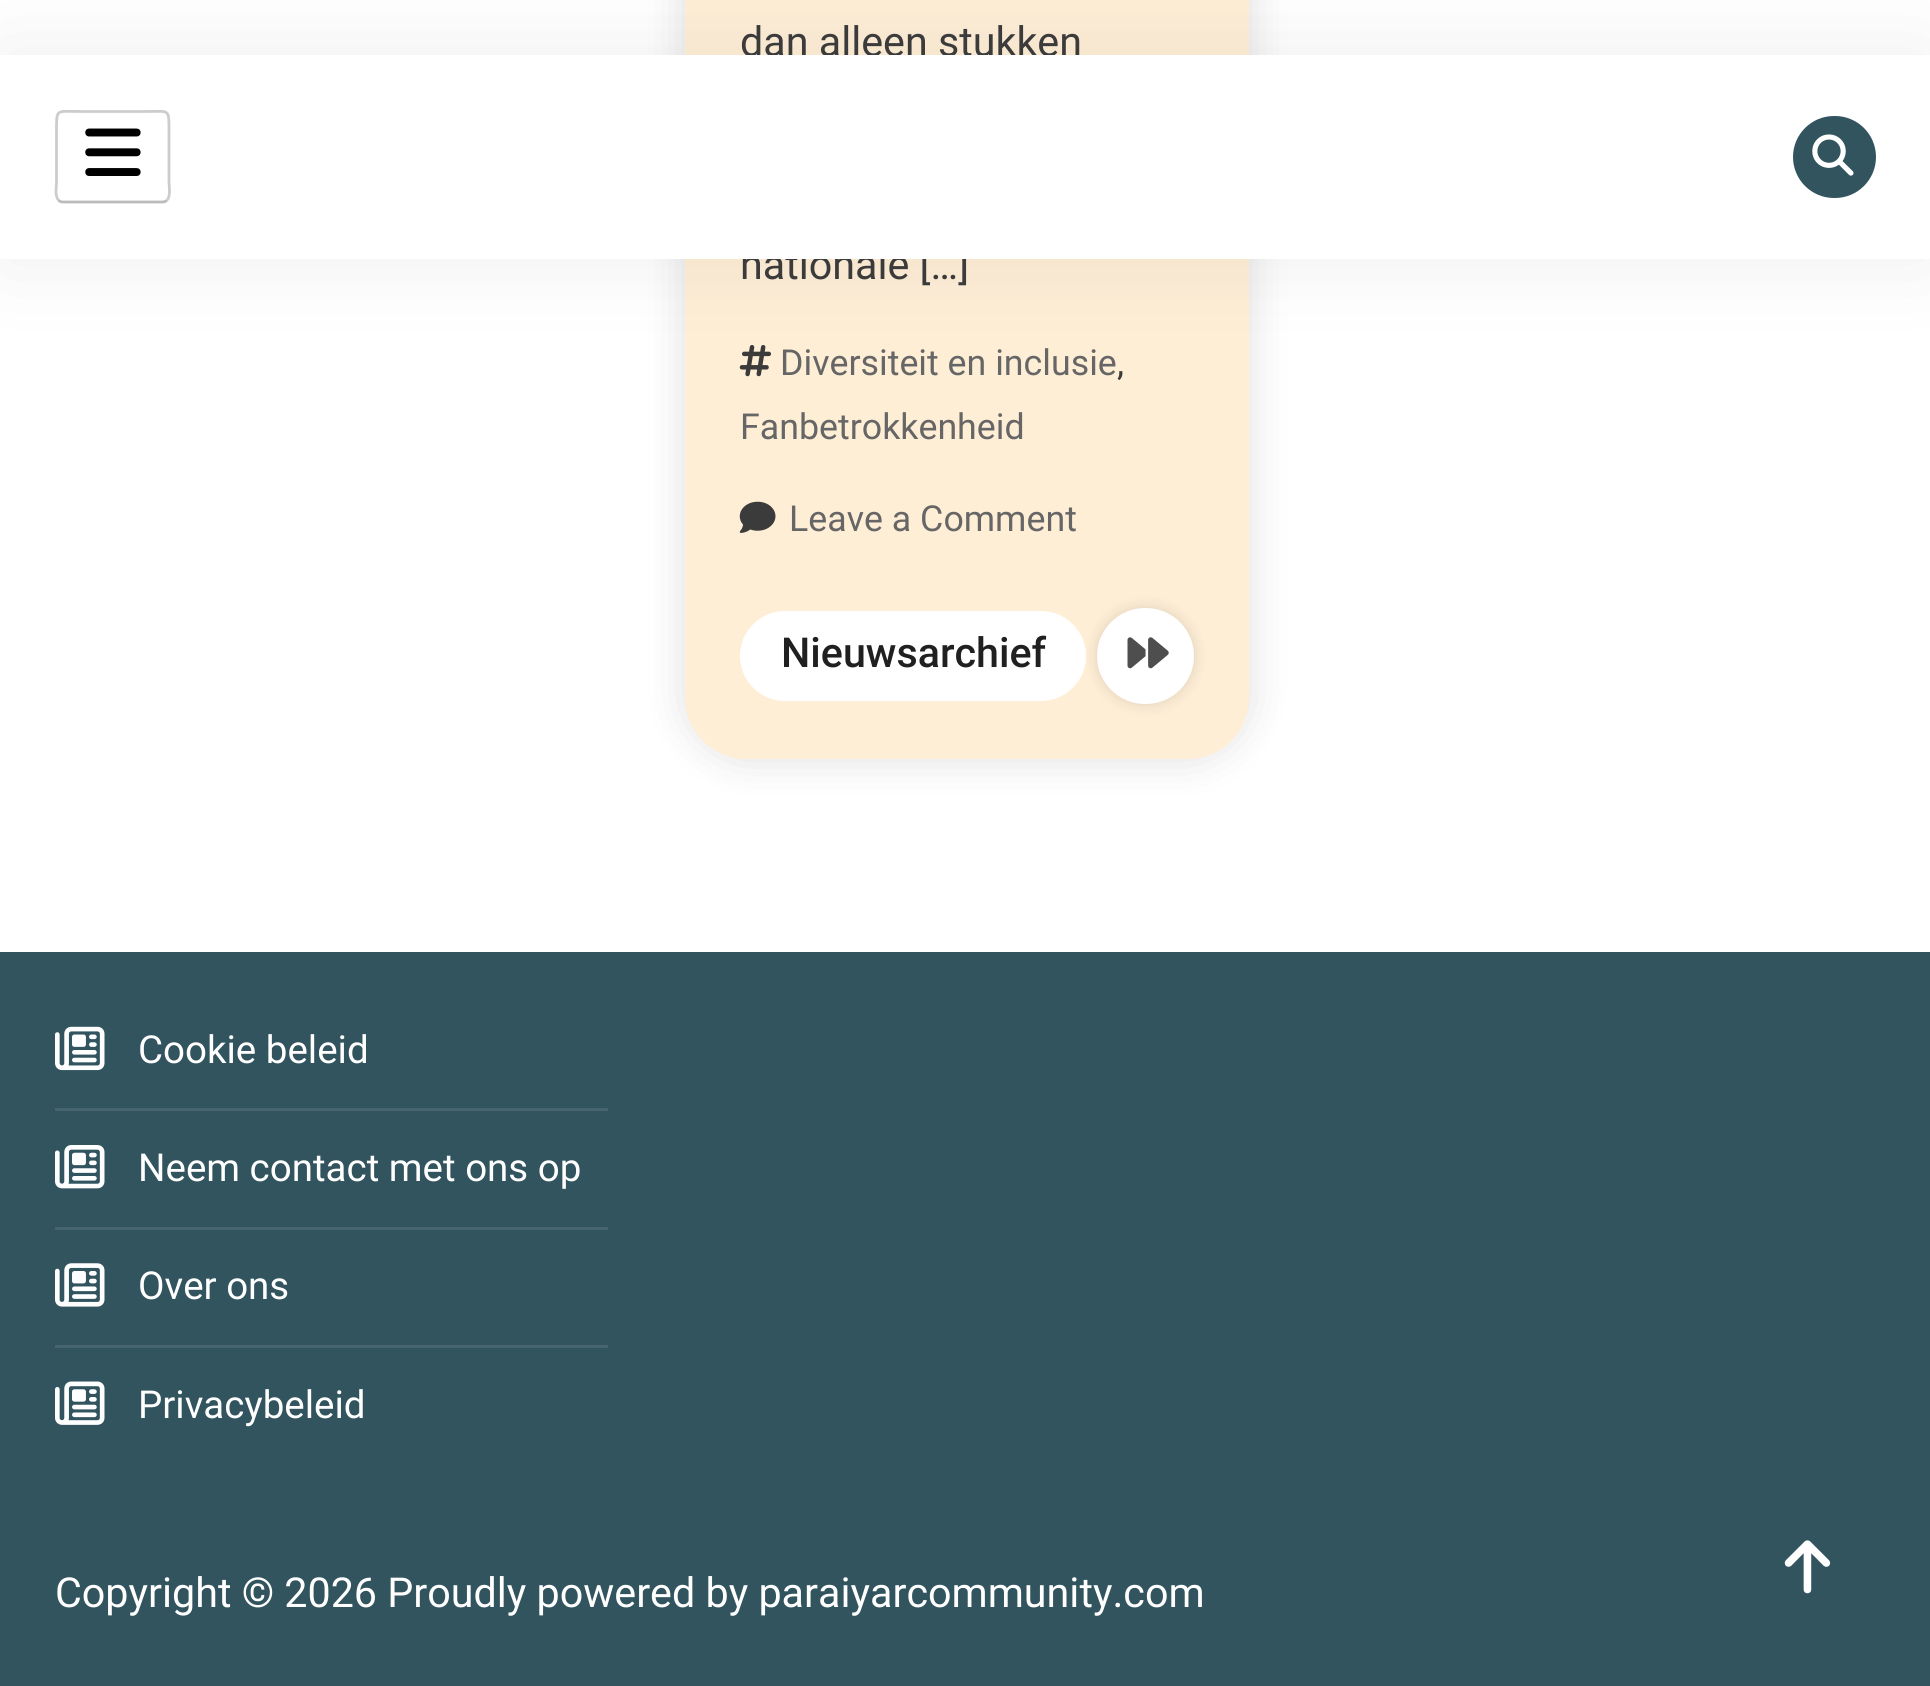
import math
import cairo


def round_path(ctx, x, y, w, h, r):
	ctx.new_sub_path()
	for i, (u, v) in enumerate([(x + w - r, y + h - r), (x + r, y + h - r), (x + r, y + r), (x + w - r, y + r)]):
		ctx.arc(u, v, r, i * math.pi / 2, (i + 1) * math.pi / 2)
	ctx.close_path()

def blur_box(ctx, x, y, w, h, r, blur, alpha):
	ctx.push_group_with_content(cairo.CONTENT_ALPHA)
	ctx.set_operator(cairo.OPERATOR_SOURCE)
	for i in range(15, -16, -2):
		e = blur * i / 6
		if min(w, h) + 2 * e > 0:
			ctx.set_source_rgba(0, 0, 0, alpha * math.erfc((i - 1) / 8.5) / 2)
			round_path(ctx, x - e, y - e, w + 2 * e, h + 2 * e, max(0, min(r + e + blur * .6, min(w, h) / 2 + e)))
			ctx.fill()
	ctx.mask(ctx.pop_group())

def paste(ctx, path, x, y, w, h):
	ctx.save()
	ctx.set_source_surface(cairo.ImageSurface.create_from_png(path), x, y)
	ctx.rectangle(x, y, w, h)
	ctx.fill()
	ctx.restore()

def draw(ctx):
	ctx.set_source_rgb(1, 1, 1)
	ctx.paint()
	ctx.set_source_rgb(0, 0, 0)
	blur_box(ctx, 685, -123, 564, 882, 61, 20.5, 0.13)
	ctx.set_source_rgb(1, 0.933, 0.839)
	round_path(ctx, 685, -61, 564, 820, 61)
	ctx.fill()
	paste(ctx, 'media/3.png', 739, 345, 32, 32)
	ctx.set_source_rgb(0, 0, 0)
	blur_box(ctx, 0, 55, 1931, 204, 0, 48, 0.07)
	ctx.select_font_face('Roboto')
	ctx.set_font_size(41.25)
	ctx.set_source_rgb(0.231, 0.231, 0.231)
	ctx.move_to(740, 56)
	ctx.show_text('dan alleen stukken')
	ctx.move_to(740, 279)
	ctx.show_text('nationale […]')
	ctx.set_source_rgb(1, 1, 1)
	ctx.rectangle(0, 55, 1930, 204)
	ctx.fill()
	ctx.new_path()
	ctx.move_to(167, 200)
	ctx.curve_to(166, 201.5, 164, 202, 162, 202)
	ctx.line_to(63, 202)
	ctx.curve_to(61.5, 202, 59.5, 201.5, 58.5, 200)
	ctx.set_source_rgb(0.733, 0.733, 0.733)
	ctx.set_line_width(2.8)
	ctx.stroke()
	ctx.new_path()
	ctx.move_to(58.5, 200)
	ctx.curve_to(54.5, 196, 56.5, 185.5, 56.5, 182.5)
	ctx.line_to(56.5, 131)
	ctx.curve_to(56.5, 108, 56, 111.5, 80, 111.5)
	ctx.line_to(146, 111.5)
	ctx.curve_to(169.5, 111.5, 169, 108, 169, 131)
	ctx.line_to(169, 182.5)
	ctx.curve_to(169, 185.5, 171, 196, 167, 200)
	ctx.set_source_rgb(0.8, 0.8, 0.8)
	ctx.stroke()
	paste(ctx, 'media/1.png', 85, 128, 56, 48)
	ctx.set_source_rgb(0.192, 0.329, 0.369)
	round_path(ctx, 1793, 116, 83, 82, 41)
	ctx.fill()
	paste(ctx, 'media/2.png', 1812, 134, 42, 42)
	ctx.set_font_size(35.75)
	ctx.set_source_rgb(0.4, 0.4, 0.4)
	ctx.move_to(780, 375)
	ctx.show_text('Diversiteit en inclusie')
	ctx.set_source_rgb(0.231, 0.231, 0.231)
	ctx.move_to(1117, 375)
	ctx.show_text(',')
	ctx.set_source_rgb(0.4, 0.4, 0.4)
	ctx.move_to(740, 439)
	ctx.show_text('Fanbetrokkenheid')
	paste(ctx, 'media/4.png', 739, 501, 37, 32)
	ctx.move_to(789, 531)
	ctx.show_text('Leave a Comment')
	ctx.set_source_rgb(1, 1, 1)
	round_path(ctx, 740, 611, 346, 90, 45)
	ctx.fill()
	ctx.select_font_face('Roboto Medium')
	ctx.set_font_size(41.25)
	ctx.set_source_rgb(0.125, 0.125, 0.125)
	ctx.move_to(781, 667)
	ctx.show_text('Nieuwsarchief')
	ctx.set_source_rgb(0, 0, 0)
	blur_box(ctx, 1097, 608, 97, 96, 48, 7, 0.13)
	ctx.set_source_rgb(1, 1, 1)
	round_path(ctx, 1097, 608, 97, 96, 48)
	ctx.fill()
	paste(ctx, 'media/5.png', 1127, 637, 42, 32)
	ctx.set_source_rgb(0.192, 0.329, 0.369)
	ctx.rectangle(0, 952, 1930, 734)
	ctx.fill()
	ctx.set_source_rgb(0.275, 0.396, 0.431)
	ctx.rectangle(55, 1108, 553, 3)
	ctx.fill()
	paste(ctx, 'media/6.png', 55, 1026, 50, 45)
	ctx.select_font_face('Roboto')
	ctx.set_font_size(38.5)
	ctx.set_source_rgb(1, 1, 1)
	ctx.move_to(138, 1063)
	ctx.show_text('Cookie beleid')
	ctx.set_source_rgb(0.275, 0.396, 0.431)
	ctx.rectangle(55, 1227, 553, 3)
	ctx.fill()
	paste(ctx, 'media/7.png', 55, 1145, 50, 44)
	ctx.set_source_rgb(1, 1, 1)
	ctx.move_to(138, 1181)
	ctx.show_text('Neem contact met ons op')
	ctx.set_source_rgb(0.275, 0.396, 0.431)
	ctx.rectangle(55, 1345, 553, 3)
	ctx.fill()
	paste(ctx, 'media/8.png', 55, 1263, 50, 44)
	ctx.set_source_rgb(1, 1, 1)
	ctx.move_to(138, 1299)
	ctx.show_text('Over ons')
	paste(ctx, 'media/9.png', 55, 1381, 50, 44)
	ctx.move_to(138, 1418)
	ctx.show_text('Privacybeleid')
	ctx.set_font_size(41.25)
	ctx.move_to(55, 1607)
	ctx.show_text('Copyright © 2026 Proudly powered by paraiyarcommunity.com')
	paste(ctx, 'media/10.png', 1784, 1540, 47, 54)


surface = cairo.ImageSurface(cairo.FORMAT_RGB24, 1930, 1686)
ctx = cairo.Context(surface)
options = cairo.FontOptions()
options.set_hint_metrics(cairo.HINT_METRICS_OFF)
options.set_hint_style(cairo.HINT_STYLE_NONE)
ctx.set_font_options(options)
ctx.set_miter_limit(4)
draw(ctx)
surface.write_to_png('image.png')
